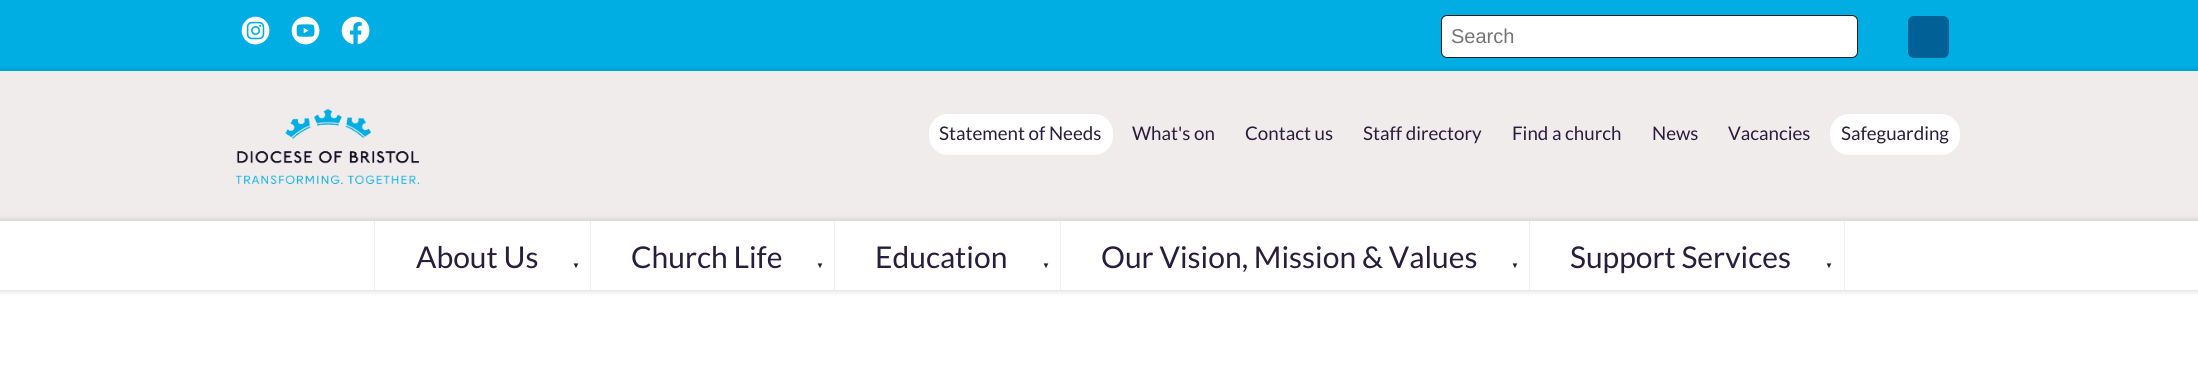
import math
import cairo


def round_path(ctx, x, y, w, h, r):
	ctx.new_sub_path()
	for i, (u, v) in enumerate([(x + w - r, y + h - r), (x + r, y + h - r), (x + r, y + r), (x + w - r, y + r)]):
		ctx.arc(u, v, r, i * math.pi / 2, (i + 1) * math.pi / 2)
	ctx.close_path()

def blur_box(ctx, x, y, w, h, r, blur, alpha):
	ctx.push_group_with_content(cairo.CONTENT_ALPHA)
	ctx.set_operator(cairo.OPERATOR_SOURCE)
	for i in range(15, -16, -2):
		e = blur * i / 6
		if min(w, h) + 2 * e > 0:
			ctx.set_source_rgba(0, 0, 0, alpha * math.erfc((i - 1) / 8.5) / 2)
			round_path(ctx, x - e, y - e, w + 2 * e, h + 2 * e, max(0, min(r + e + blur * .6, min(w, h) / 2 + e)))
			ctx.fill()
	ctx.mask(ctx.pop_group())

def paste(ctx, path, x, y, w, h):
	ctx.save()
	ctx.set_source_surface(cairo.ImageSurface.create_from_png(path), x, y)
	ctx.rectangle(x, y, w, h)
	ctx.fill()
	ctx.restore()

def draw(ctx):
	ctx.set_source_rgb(1, 1, 1)
	ctx.paint()
	ctx.set_source_rgb(0, 0.682, 0.894)
	ctx.rectangle(0, 0, 2198, 71)
	ctx.fill()
	paste(ctx, 'media/1.png', 241, 16, 29, 29)
	paste(ctx, 'media/2.png', 291, 16, 29, 29)
	paste(ctx, 'media/3.png', 341, 16, 29, 29)
	ctx.set_source_rgb(1, 1, 1)
	round_path(ctx, 1441.5, 15.5, 416, 42, 5.5)
	ctx.fill_preserve()
	ctx.set_source_rgb(0.114, 0.114, 0.106)
	ctx.set_line_width(1)
	ctx.stroke()
	ctx.select_font_face('Liberation Sans')
	ctx.set_font_size(20)
	ctx.set_source_rgb(0.459, 0.459, 0.459)
	ctx.move_to(1451, 43)
	ctx.show_text('Search')
	ctx.set_source_rgb(0.004, 0.376, 0.588)
	round_path(ctx, 1908, 16, 41, 42, 6)
	ctx.fill()
	ctx.set_source_rgb(0, 0, 0)
	blur_box(ctx, -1, 70, 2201, 153, 0, 3, 0.15)
	ctx.set_source_rgb(0.941, 0.925, 0.925)
	ctx.rectangle(0, 71, 2198, 150)
	ctx.fill()
	paste(ctx, 'media/4.png', 235, 108, 185, 77)
	ctx.set_source_rgb(1, 1, 1)
	round_path(ctx, 929, 114, 184, 41, 19)
	ctx.fill()
	ctx.select_font_face('Lato')
	ctx.set_font_size(18.75)
	ctx.set_source_rgb(0.157, 0.114, 0.235)
	for x, y, s in [
		(939, 140, 'Statement of Needs'),
		(1132, 140, 'What\'s on'),
		(1245, 140, 'Contact us'),
		(1363, 140, 'Staff directory'),
		(1512, 140, 'Find a church'),
		(1652, 140, 'News'),
		(1728, 140, 'Vacancies'),
	]:
		ctx.move_to(x, y)
		ctx.show_text(s)
	ctx.set_source_rgb(1, 1, 1)
	round_path(ctx, 1830, 114, 130, 41, 19)
	ctx.fill()
	ctx.set_source_rgb(0.157, 0.114, 0.235)
	ctx.move_to(1841, 140)
	ctx.show_text('Safeguarding')
	ctx.set_source_rgb(0, 0, 0)
	blur_box(ctx, -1, 220, 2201, 71, 0, 3, 0.15)
	ctx.set_source_rgb(1, 1, 1)
	ctx.rectangle(0, 221, 2198, 69)
	ctx.fill()
	ctx.set_source_rgb(0.937, 0.937, 0.937)
	ctx.rectangle(374, 221, 1, 69)
	ctx.rectangle(590, 221, 1, 69)
	ctx.fill()
	ctx.set_font_size(30)
	ctx.set_source_rgb(0.157, 0.114, 0.235)
	ctx.move_to(416, 268)
	ctx.show_text('About Us')
	ctx.select_font_face('Liberation Sans')
	ctx.set_font_size(8)
	ctx.move_to(572, 268)
	ctx.show_text('▼')
	ctx.set_source_rgb(0.937, 0.937, 0.937)
	ctx.rectangle(834, 221, 1, 69)
	ctx.fill()
	ctx.select_font_face('Lato')
	ctx.set_font_size(30)
	ctx.set_source_rgb(0.157, 0.114, 0.235)
	ctx.move_to(631, 268)
	ctx.show_text('Church Life')
	ctx.select_font_face('Liberation Sans')
	ctx.set_font_size(8)
	ctx.move_to(816, 268)
	ctx.show_text('▼')
	ctx.set_source_rgb(0.937, 0.937, 0.937)
	ctx.rectangle(1060, 221, 1, 69)
	ctx.fill()
	ctx.select_font_face('Lato')
	ctx.set_font_size(30)
	ctx.set_source_rgb(0.157, 0.114, 0.235)
	ctx.move_to(875, 268)
	ctx.show_text('Education')
	ctx.select_font_face('Liberation Sans')
	ctx.set_font_size(8)
	ctx.move_to(1042, 268)
	ctx.show_text('▼')
	ctx.set_source_rgb(0.937, 0.937, 0.937)
	ctx.rectangle(1529, 221, 1, 69)
	ctx.fill()
	ctx.select_font_face('Lato')
	ctx.set_font_size(30)
	ctx.set_source_rgb(0.157, 0.114, 0.235)
	ctx.move_to(1101, 268)
	ctx.show_text('Our Vision, Mission & Values')
	ctx.select_font_face('Liberation Sans')
	ctx.set_font_size(8)
	ctx.move_to(1511, 268)
	ctx.show_text('▼')
	ctx.set_source_rgb(0.937, 0.937, 0.937)
	ctx.rectangle(1844, 221, 1, 69)
	ctx.fill()
	ctx.select_font_face('Lato')
	ctx.set_font_size(30)
	ctx.set_source_rgb(0.157, 0.114, 0.235)
	ctx.move_to(1570, 268)
	ctx.show_text('Support Services')
	ctx.select_font_face('Liberation Sans')
	ctx.set_font_size(8)
	ctx.move_to(1825, 268)
	ctx.show_text('▼')


surface = cairo.ImageSurface(cairo.FORMAT_RGB24, 2198, 391)
ctx = cairo.Context(surface)
options = cairo.FontOptions()
options.set_hint_metrics(cairo.HINT_METRICS_OFF)
options.set_hint_style(cairo.HINT_STYLE_NONE)
ctx.set_font_options(options)
ctx.set_miter_limit(4)
draw(ctx)
surface.write_to_png('image.png')
